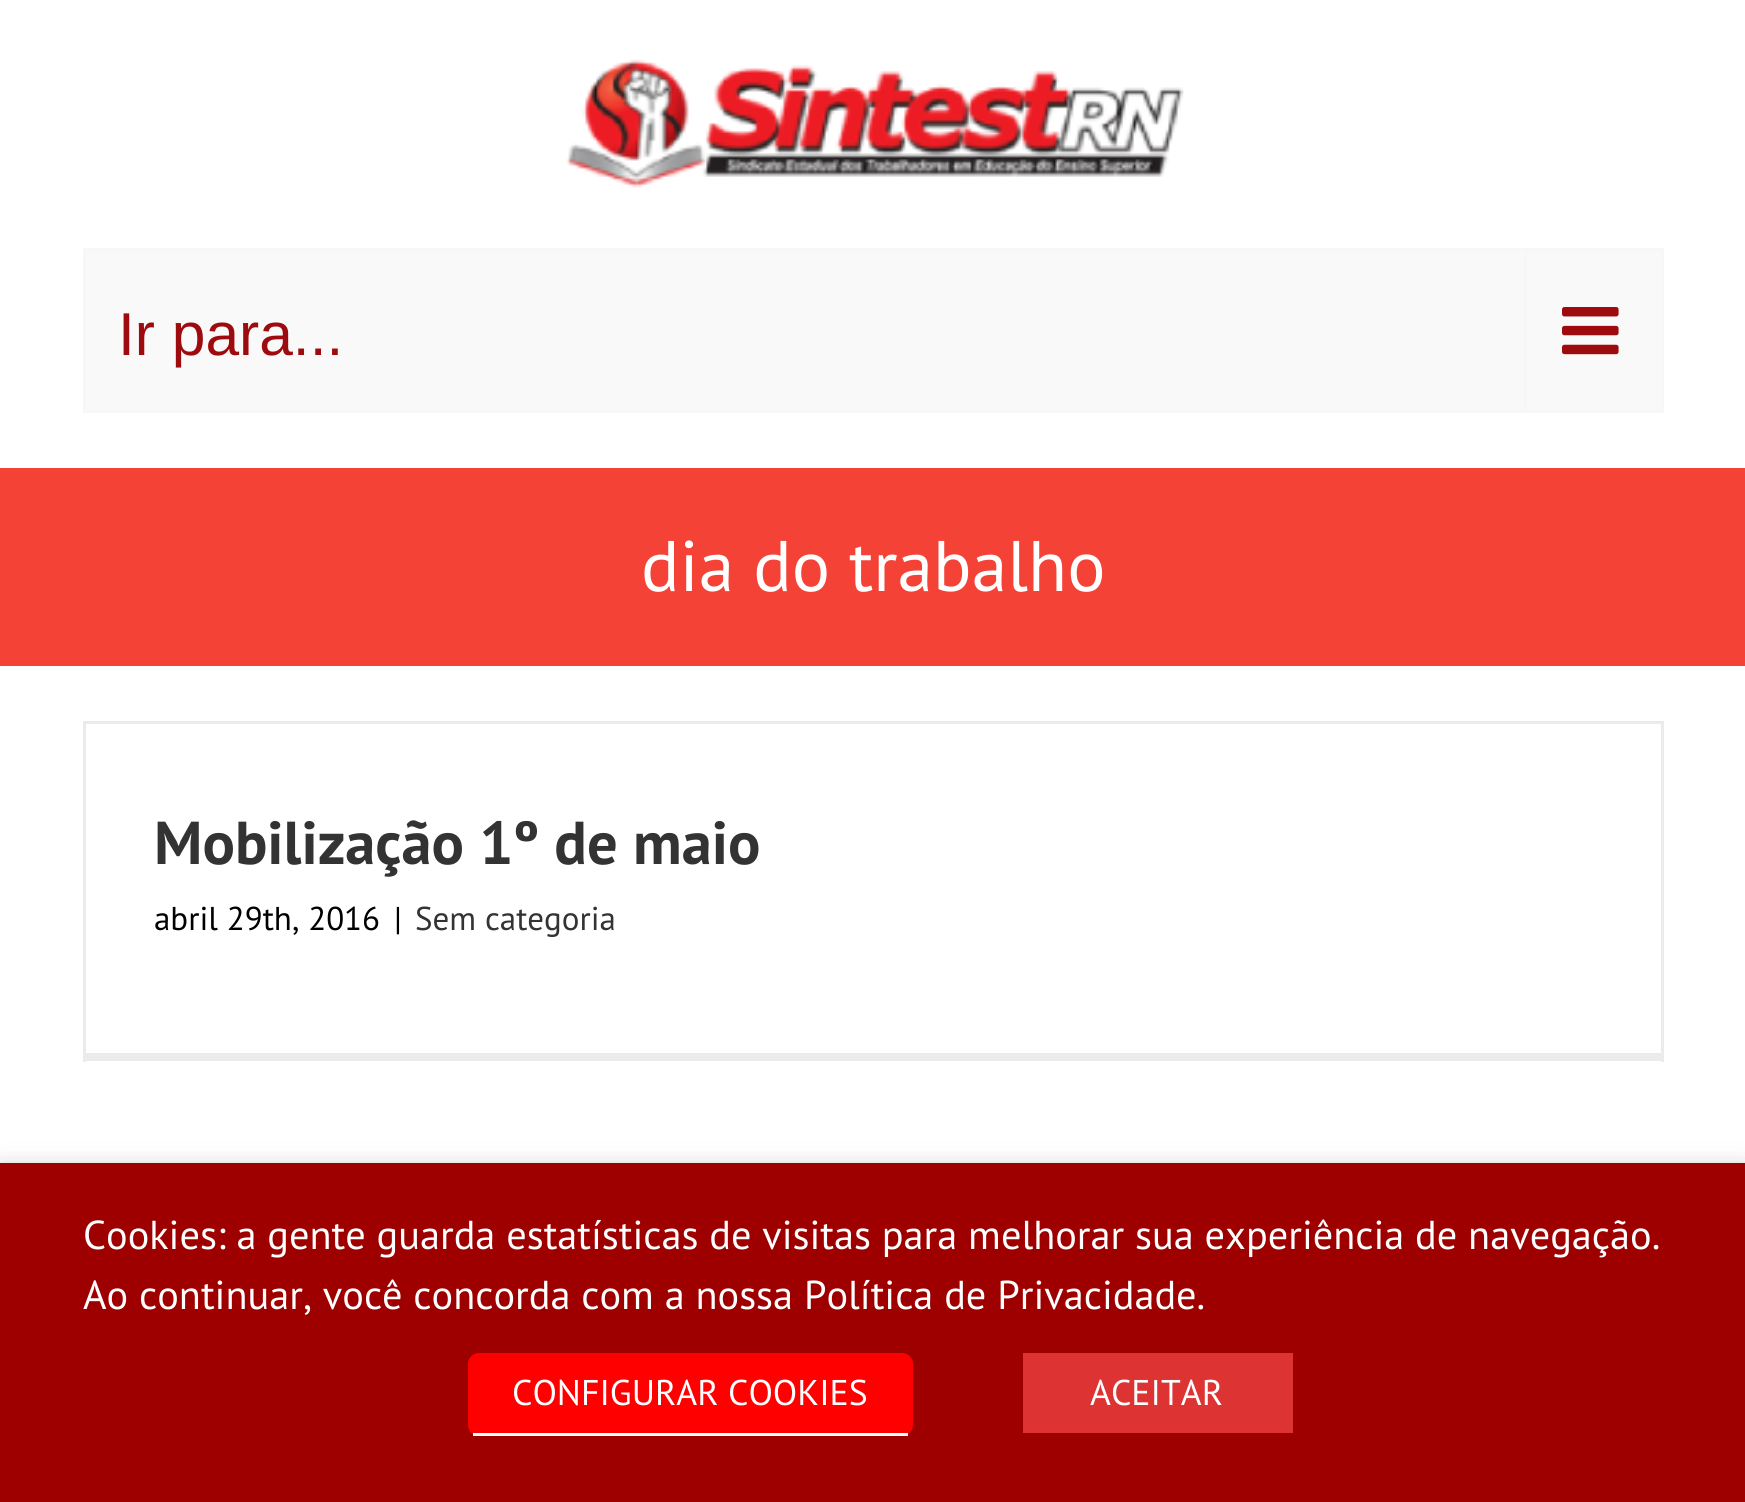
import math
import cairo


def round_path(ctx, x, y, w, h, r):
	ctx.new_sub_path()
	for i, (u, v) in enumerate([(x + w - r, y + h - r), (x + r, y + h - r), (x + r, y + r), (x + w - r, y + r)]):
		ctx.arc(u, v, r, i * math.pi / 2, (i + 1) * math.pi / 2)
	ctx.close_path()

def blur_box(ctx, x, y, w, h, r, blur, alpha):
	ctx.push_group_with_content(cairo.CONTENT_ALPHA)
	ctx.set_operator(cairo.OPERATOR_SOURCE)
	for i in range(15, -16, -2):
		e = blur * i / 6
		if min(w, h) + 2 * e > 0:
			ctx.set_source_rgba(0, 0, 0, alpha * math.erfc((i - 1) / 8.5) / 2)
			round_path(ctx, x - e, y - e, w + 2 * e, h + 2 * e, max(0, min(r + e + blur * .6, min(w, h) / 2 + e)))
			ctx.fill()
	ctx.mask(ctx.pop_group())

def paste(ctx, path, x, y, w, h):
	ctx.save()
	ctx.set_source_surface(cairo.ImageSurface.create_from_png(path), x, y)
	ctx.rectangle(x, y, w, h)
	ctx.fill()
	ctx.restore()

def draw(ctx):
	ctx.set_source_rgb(1, 1, 1)
	ctx.paint()
	paste(ctx, 'media/1.png', 566, 59, 618, 129)
	ctx.set_source_rgb(0.976, 0.976, 0.976)
	ctx.rectangle(84.5, 249.5, 1578, 162)
	ctx.fill_preserve()
	ctx.set_source_rgb(0.965, 0.965, 0.965)
	ctx.set_line_width(3)
	ctx.stroke()
	ctx.select_font_face('Liberation Sans')
	ctx.set_font_size(60.5)
	ctx.set_source_rgb(0.62, 0.043, 0.059)
	ctx.move_to(118, 355)
	ctx.show_text('Ir para...')
	ctx.set_source_rgb(0.965, 0.965, 0.965)
	ctx.rectangle(1524, 250, 3, 160)
	ctx.fill()
	paste(ctx, 'media/2.png', 1562, 307, 57, 48)
	ctx.set_source_rgb(0.957, 0.263, 0.212)
	ctx.rectangle(0, 468, 1745, 198)
	ctx.fill()
	ctx.select_font_face('PT Sans')
	ctx.set_font_size(71.5)
	ctx.set_source_rgb(1, 1, 1)
	ctx.move_to(641, 591)
	ctx.show_text('dia do trabalho')
	ctx.set_source_rgb(0.922, 0.918, 0.918)
	ctx.rectangle(83, 721, 1581, 3)
	ctx.rectangle(1661, 721, 3, 341)
	ctx.rectangle(83, 1053, 1581, 8)
	ctx.rectangle(83, 721, 3, 341)
	ctx.fill()
	ctx.select_font_face('PT Sans', cairo.FONT_SLANT_NORMAL, cairo.FONT_WEIGHT_BOLD)
	ctx.set_font_size(60.5)
	ctx.set_source_rgb(0.2, 0.2, 0.2)
	ctx.move_to(154, 864)
	ctx.show_text('Mobilização 1º de maio')
	ctx.select_font_face('PT Sans')
	ctx.set_font_size(33)
	ctx.set_source_rgb(0, 0, 0)
	ctx.move_to(154, 930)
	ctx.show_text('abril 29th, 2016')
	ctx.move_to(394, 930)
	ctx.show_text('|')
	ctx.set_source_rgb(0.2, 0.2, 0.2)
	ctx.move_to(415, 930)
	ctx.show_text('Sem categoria')
	ctx.set_source_rgb(0, 0, 0)
	blur_box(ctx, 0, 1177, 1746, 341, 0, 14, 0.5)
	ctx.set_source_rgb(0.62, 0, 0)
	ctx.rectangle(0, 1163, 1745, 339)
	ctx.fill()
	ctx.set_font_size(40.35)
	ctx.set_source_rgb(1, 1, 1)
	ctx.move_to(83, 1249)
	ctx.show_text('Cookies: a gente guarda estatísticas de visitas para melhorar sua experiência de navegação.')
	ctx.move_to(83, 1309)
	ctx.show_text('Ao continuar, você concorda com a nossa Política de Privacidade.')
	ctx.set_source_rgb(1, 0, 0)
	round_path(ctx, 468, 1353, 445, 83, 11)
	ctx.fill()
	ctx.set_source_rgb(1, 1, 1)
	ctx.rectangle(473, 1433, 435, 3)
	ctx.fill()
	ctx.set_font_size(35.75)
	ctx.move_to(512, 1405)
	ctx.show_text('CONFIGURAR COOKIES')
	ctx.set_source_rgb(0.867, 0.2, 0.2)
	ctx.rectangle(1023, 1353, 270, 80)
	ctx.fill()
	ctx.set_source_rgb(1, 1, 1)
	ctx.move_to(1090, 1405)
	ctx.show_text('ACEITAR')


surface = cairo.ImageSurface(cairo.FORMAT_RGB24, 1745, 1502)
ctx = cairo.Context(surface)
options = cairo.FontOptions()
options.set_hint_metrics(cairo.HINT_METRICS_OFF)
options.set_hint_style(cairo.HINT_STYLE_NONE)
ctx.set_font_options(options)
ctx.set_miter_limit(4)
draw(ctx)
surface.write_to_png('image.png')
